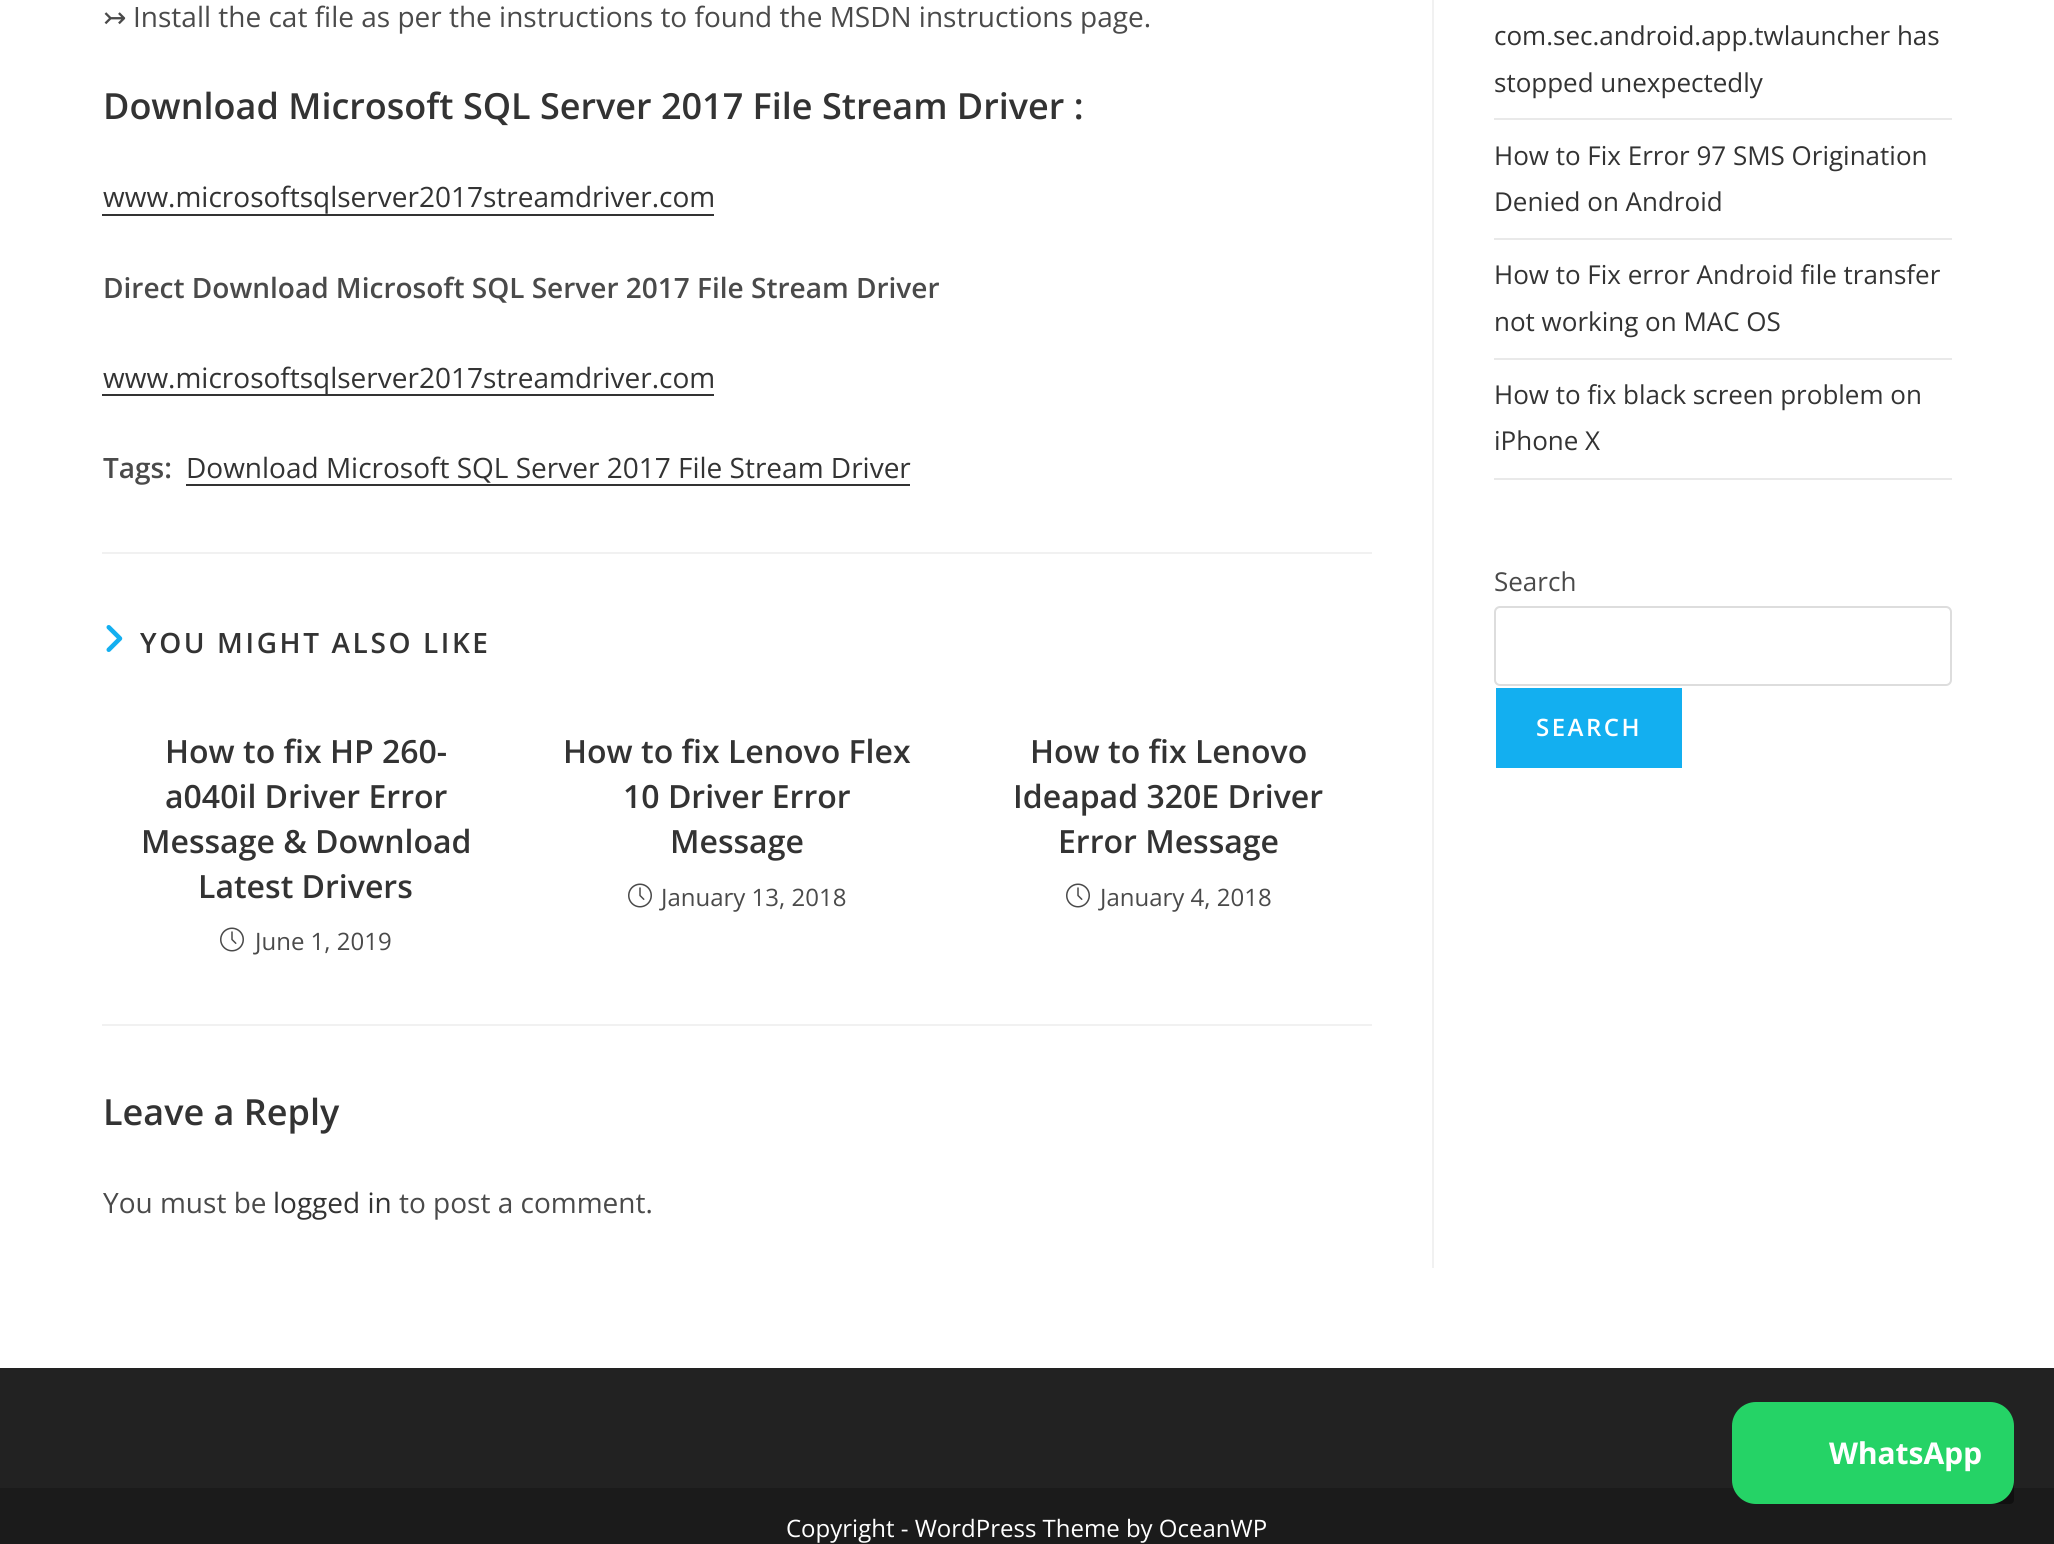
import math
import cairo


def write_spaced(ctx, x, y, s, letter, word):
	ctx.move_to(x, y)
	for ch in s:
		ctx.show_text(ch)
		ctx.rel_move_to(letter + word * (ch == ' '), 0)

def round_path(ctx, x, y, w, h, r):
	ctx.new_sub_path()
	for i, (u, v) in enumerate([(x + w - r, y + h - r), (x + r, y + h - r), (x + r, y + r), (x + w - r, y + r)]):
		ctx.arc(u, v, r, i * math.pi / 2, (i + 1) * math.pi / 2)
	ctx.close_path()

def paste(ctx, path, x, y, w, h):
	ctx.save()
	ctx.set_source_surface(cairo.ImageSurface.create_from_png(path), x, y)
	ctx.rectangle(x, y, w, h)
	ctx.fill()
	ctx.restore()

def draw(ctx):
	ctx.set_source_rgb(1, 1, 1)
	ctx.paint()
	ctx.set_source_rgb(0.945, 0.945, 0.945)
	ctx.rectangle(1432, 0, 2, 1268)
	ctx.fill()
	ctx.select_font_face('DejaVu Sans')
	ctx.set_font_size(28)
	ctx.set_source_rgb(0.29, 0.29, 0.29)
	ctx.move_to(103, 27)
	ctx.show_text('↣')
	ctx.select_font_face('Open Sans')
	ctx.move_to(133, 27)
	ctx.show_text('Install the cat file as per the instructions to found the MSDN instructions page.')
	ctx.select_font_face('Open Sans SemiBold')
	ctx.set_font_size(36)
	ctx.set_source_rgb(0.2, 0.2, 0.2)
	ctx.move_to(103, 119)
	ctx.show_text('Download Microsoft SQL Server 2017 File Stream Driver :')
	ctx.select_font_face('Open Sans')
	ctx.set_font_size(28)
	ctx.move_to(103, 207)
	ctx.show_text('www.microsoftsqlserver2017streamdriver.com')
	ctx.rectangle(102, 214, 612, 2)
	ctx.fill()
	ctx.select_font_face('Open Sans SemiBold')
	ctx.set_source_rgb(0.29, 0.29, 0.29)
	ctx.move_to(103, 298)
	ctx.show_text('Direct Download Microsoft SQL Server 2017 File Stream Driver')
	ctx.set_source_rgb(0.2, 0.2, 0.2)
	ctx.rectangle(102, 394, 612, 2)
	ctx.fill()
	ctx.select_font_face('Open Sans')
	ctx.move_to(103, 388)
	ctx.show_text('www.microsoftsqlserver2017streamdriver.com')
	ctx.select_font_face('Open Sans SemiBold')
	ctx.set_source_rgb(0.29, 0.29, 0.29)
	ctx.move_to(103, 478)
	ctx.show_text('Tags:')
	ctx.select_font_face('Open Sans')
	ctx.set_source_rgb(0.2, 0.2, 0.2)
	ctx.move_to(186, 478)
	ctx.show_text('Download Microsoft SQL Server 2017 File Stream Driver')
	ctx.rectangle(186, 484, 724, 2)
	ctx.fill()
	ctx.set_source_rgb(0.945, 0.945, 0.945)
	ctx.rectangle(102, 552, 1270, 2)
	ctx.fill()
	paste(ctx, 'media/1.png', 106, 625, 17, 27)
	ctx.select_font_face('Open Sans SemiBold')
	ctx.set_source_rgb(0.2, 0.2, 0.2)
	write_spaced(ctx, 140, 653, 'YOU MIGHT ALSO LIKE', 2.6, 0)
	ctx.set_font_size(32)
	for x, y, s in [
		(165, 763, 'How to fix HP 260-'),
		(165, 808, 'a040il Driver Error'),
		(141, 853, 'Message & Download'),
		(198, 898, 'Latest Drivers'),
	]:
		ctx.move_to(x, y)
		ctx.show_text(s)
	paste(ctx, 'media/2.png', 220, 927, 24, 25)
	ctx.select_font_face('Open Sans')
	ctx.set_font_size(24)
	ctx.set_source_rgb(0.29, 0.29, 0.29)
	ctx.move_to(255, 950)
	ctx.show_text('June 1, 2019')
	ctx.select_font_face('Open Sans SemiBold')
	ctx.set_font_size(32)
	ctx.set_source_rgb(0.2, 0.2, 0.2)
	for x, y, s in [
		(563, 763, 'How to fix Lenovo Flex'),
		(623, 808, '10 Driver Error'),
		(670, 853, 'Message'),
	]:
		ctx.move_to(x, y)
		ctx.show_text(s)
	paste(ctx, 'media/2.png', 628, 883, 24, 25)
	ctx.select_font_face('Open Sans')
	ctx.set_font_size(24)
	ctx.set_source_rgb(0.29, 0.29, 0.29)
	ctx.move_to(661, 906)
	ctx.show_text('January 13, 2018')
	ctx.select_font_face('Open Sans SemiBold')
	ctx.set_font_size(32)
	ctx.set_source_rgb(0.2, 0.2, 0.2)
	for x, y, s in [
		(1030, 763, 'How to fix Lenovo'),
		(1013, 808, 'Ideapad 320E Driver'),
		(1058, 853, 'Error Message'),
	]:
		ctx.move_to(x, y)
		ctx.show_text(s)
	paste(ctx, 'media/2.png', 1066, 883, 24, 25)
	ctx.select_font_face('Open Sans')
	ctx.set_font_size(24)
	ctx.set_source_rgb(0.29, 0.29, 0.29)
	ctx.move_to(1100, 906)
	ctx.show_text('January 4, 2018')
	ctx.set_source_rgb(0.945, 0.945, 0.945)
	ctx.rectangle(102, 1024, 1270, 2)
	ctx.fill()
	ctx.select_font_face('Open Sans SemiBold')
	ctx.set_font_size(36)
	ctx.set_source_rgb(0.2, 0.2, 0.2)
	ctx.move_to(103, 1125)
	ctx.show_text('Leave a Reply')
	ctx.select_font_face('Open Sans')
	ctx.set_font_size(28)
	ctx.set_source_rgb(0.29, 0.29, 0.29)
	ctx.move_to(103, 1213)
	ctx.show_text('You must be')
	ctx.set_source_rgb(0.2, 0.2, 0.2)
	ctx.move_to(273, 1213)
	ctx.show_text('logged in')
	ctx.set_source_rgb(0.29, 0.29, 0.29)
	ctx.move_to(399, 1213)
	ctx.show_text('to post a comment.')
	ctx.set_source_rgb(0.914, 0.914, 0.914)
	ctx.rectangle(1494, 118, 458, 2)
	ctx.fill()
	ctx.set_font_size(26)
	ctx.set_source_rgb(0.2, 0.2, 0.2)
	ctx.move_to(1494, 45)
	ctx.show_text('com.sec.android.app.twlauncher has')
	ctx.move_to(1494, 92)
	ctx.show_text('stopped unexpectedly')
	ctx.set_source_rgb(0.914, 0.914, 0.914)
	ctx.rectangle(1494, 238, 458, 2)
	ctx.fill()
	ctx.set_source_rgb(0.2, 0.2, 0.2)
	ctx.move_to(1494, 165)
	ctx.show_text('How to Fix Error 97 SMS Origination')
	ctx.move_to(1494, 211)
	ctx.show_text('Denied on Android')
	ctx.set_source_rgb(0.914, 0.914, 0.914)
	ctx.rectangle(1494, 358, 458, 2)
	ctx.fill()
	ctx.set_source_rgb(0.2, 0.2, 0.2)
	ctx.move_to(1494, 284)
	ctx.show_text('How to Fix error Android file transfer')
	ctx.move_to(1494, 331)
	ctx.show_text('not working on MAC OS')
	ctx.set_source_rgb(0.914, 0.914, 0.914)
	ctx.rectangle(1494, 478, 458, 2)
	ctx.fill()
	ctx.set_source_rgb(0.2, 0.2, 0.2)
	ctx.move_to(1494, 404)
	ctx.show_text('How to fix black screen problem on')
	ctx.move_to(1494, 450)
	ctx.show_text('iPhone X')
	ctx.set_source_rgb(0.29, 0.29, 0.29)
	ctx.move_to(1494, 591)
	ctx.show_text('Search')
	round_path(ctx, 1495, 607, 456, 78, 5)
	ctx.set_source_rgb(0.867, 0.867, 0.867)
	ctx.stroke()
	ctx.set_source_rgb(0.075, 0.686, 0.941)
	ctx.rectangle(1496, 688, 186, 80)
	ctx.fill()
	ctx.select_font_face('Open Sans SemiBold')
	ctx.set_font_size(24)
	ctx.set_source_rgb(1, 1, 1)
	write_spaced(ctx, 1536, 736, 'SEARCH', 2.5, 0)
	ctx.set_source_rgb(0.133, 0.133, 0.133)
	ctx.rectangle(0, 1368, 2054, 120)
	ctx.fill()
	ctx.set_source_rgb(0.106, 0.106, 0.106)
	ctx.rectangle(0, 1488, 2054, 56)
	ctx.fill()
	ctx.select_font_face('Open Sans')
	ctx.set_source_rgb(1, 1, 1)
	ctx.move_to(786, 1537)
	ctx.show_text('Copyright - WordPress Theme by OceanWP')
	ctx.set_source_rgba(0, 0, 0, 0.4)
	round_path(ctx, 1934, 1424, 80, 80, 4)
	ctx.fill()
	ctx.set_source_rgb(0.145, 0.827, 0.4)
	round_path(ctx, 1732, 1402, 282, 102, 24)
	ctx.fill()
	ctx.select_font_face('Noto Sans', cairo.FONT_SLANT_NORMAL, cairo.FONT_WEIGHT_BOLD)
	ctx.set_font_size(30)
	ctx.set_source_rgb(1, 1, 1)
	ctx.move_to(1829, 1464)
	ctx.show_text('WhatsApp')


surface = cairo.ImageSurface(cairo.FORMAT_RGB24, 2054, 1544)
ctx = cairo.Context(surface)
options = cairo.FontOptions()
options.set_hint_metrics(cairo.HINT_METRICS_OFF)
options.set_hint_style(cairo.HINT_STYLE_NONE)
ctx.set_font_options(options)
ctx.set_miter_limit(4)
draw(ctx)
surface.write_to_png('image.png')
